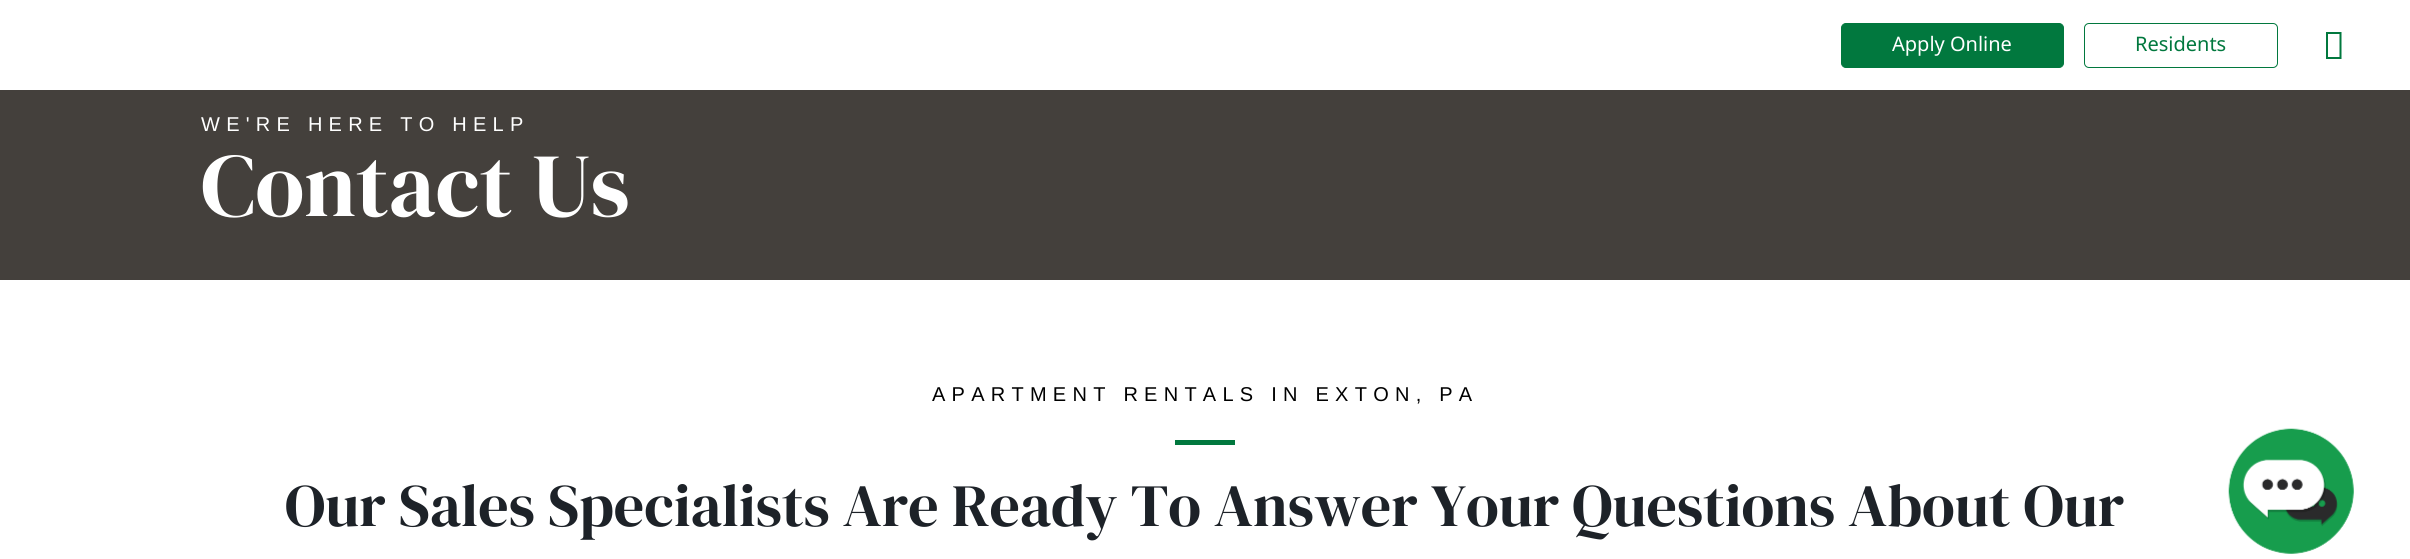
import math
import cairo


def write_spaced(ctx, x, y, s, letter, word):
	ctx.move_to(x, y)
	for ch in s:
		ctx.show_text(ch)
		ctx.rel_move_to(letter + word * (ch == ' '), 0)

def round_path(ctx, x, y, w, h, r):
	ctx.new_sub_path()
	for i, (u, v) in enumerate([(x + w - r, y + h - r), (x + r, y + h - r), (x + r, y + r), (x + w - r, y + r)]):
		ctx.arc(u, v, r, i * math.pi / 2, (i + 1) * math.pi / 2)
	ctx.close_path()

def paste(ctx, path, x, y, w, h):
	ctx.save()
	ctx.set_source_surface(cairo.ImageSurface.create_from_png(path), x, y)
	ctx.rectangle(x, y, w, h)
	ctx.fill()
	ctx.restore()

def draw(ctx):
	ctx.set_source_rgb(1, 1, 1)
	ctx.paint()
	ctx.set_source_rgb(0.004, 0.471, 0.243)
	round_path(ctx, 1841.5, 23.5, 222, 44, 4.5)
	ctx.fill_preserve()
	ctx.set_line_width(1)
	ctx.stroke()
	ctx.select_font_face('Noto Sans')
	ctx.set_font_size(20)
	ctx.set_source_rgb(1, 1, 1)
	ctx.move_to(1892, 51)
	ctx.show_text('Apply Online')
	round_path(ctx, 2084.5, 23.5, 193, 44, 4.5)
	ctx.set_source_rgb(0.004, 0.471, 0.243)
	ctx.stroke()
	ctx.move_to(2135, 51)
	ctx.show_text('Residents')
	ctx.new_path()
	ctx.move_to(2326, 59)
	ctx.line_to(2326, 32)
	ctx.line_to(2341.5, 32)
	ctx.line_to(2341.5, 59)
	ctx.close_path()
	ctx.move_to(2328, 57)
	ctx.line_to(2339.5, 57)
	ctx.line_to(2339.5, 34)
	ctx.line_to(2328, 34)
	ctx.close_path()
	ctx.fill()
	ctx.set_source_rgb(0.267, 0.251, 0.235)
	ctx.rectangle(0, 90, 2410, 190)
	ctx.fill()
	ctx.select_font_face('Liberation Sans')
	ctx.set_source_rgb(1, 1, 1)
	write_spaced(ctx, 201, 131, 'WE\'RE HERE TO HELP', 6.25, 0)
	ctx.select_font_face('DM Serif Display')
	ctx.set_font_size(90)
	ctx.move_to(201, 216)
	ctx.show_text('Contact Us')
	ctx.select_font_face('Liberation Sans')
	ctx.set_font_size(20)
	ctx.set_source_rgb(0, 0, 0)
	write_spaced(ctx, 932, 401, 'APARTMENT RENTALS IN EXTON, PA', 6.25, 0)
	ctx.set_source_rgb(0.004, 0.471, 0.243)
	ctx.rectangle(1175, 440, 60, 5)
	ctx.fill()
	ctx.select_font_face('DM Serif Display')
	ctx.set_font_size(60)
	ctx.set_source_rgb(0.114, 0.133, 0.157)
	ctx.move_to(285, 526)
	ctx.show_text('Our Sales Specialists Are Ready To Answer Your Questions About Our')
	paste(ctx, 'media/1.png', 2228, 428, 126, 126)


surface = cairo.ImageSurface(cairo.FORMAT_RGB24, 2410, 559)
ctx = cairo.Context(surface)
options = cairo.FontOptions()
options.set_hint_metrics(cairo.HINT_METRICS_OFF)
options.set_hint_style(cairo.HINT_STYLE_NONE)
ctx.set_font_options(options)
ctx.set_miter_limit(4)
draw(ctx)
surface.write_to_png('image.png')
